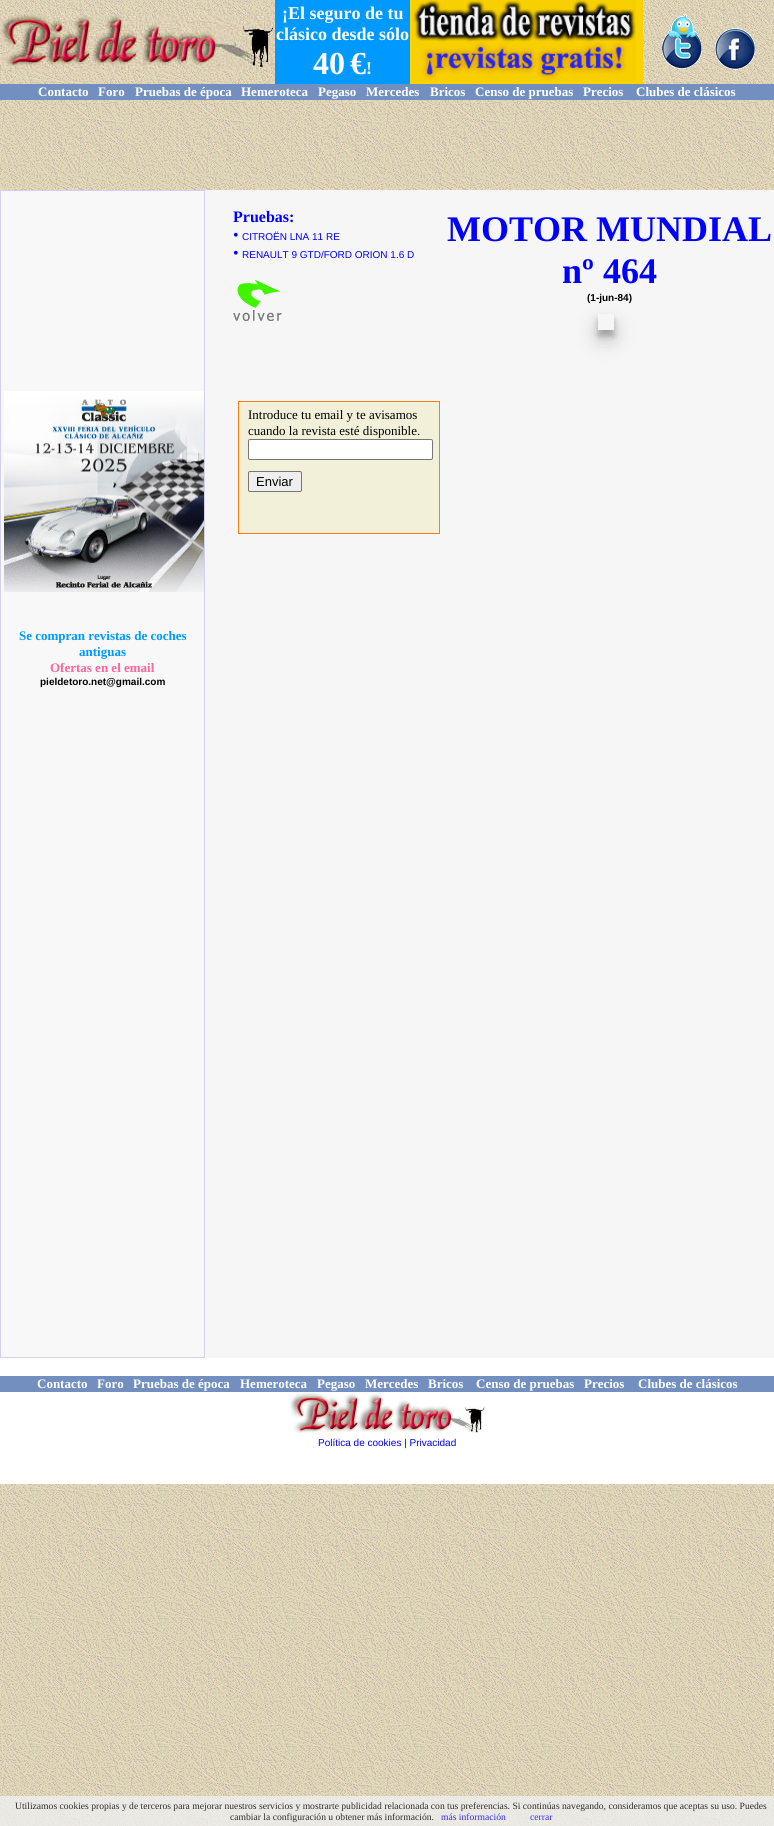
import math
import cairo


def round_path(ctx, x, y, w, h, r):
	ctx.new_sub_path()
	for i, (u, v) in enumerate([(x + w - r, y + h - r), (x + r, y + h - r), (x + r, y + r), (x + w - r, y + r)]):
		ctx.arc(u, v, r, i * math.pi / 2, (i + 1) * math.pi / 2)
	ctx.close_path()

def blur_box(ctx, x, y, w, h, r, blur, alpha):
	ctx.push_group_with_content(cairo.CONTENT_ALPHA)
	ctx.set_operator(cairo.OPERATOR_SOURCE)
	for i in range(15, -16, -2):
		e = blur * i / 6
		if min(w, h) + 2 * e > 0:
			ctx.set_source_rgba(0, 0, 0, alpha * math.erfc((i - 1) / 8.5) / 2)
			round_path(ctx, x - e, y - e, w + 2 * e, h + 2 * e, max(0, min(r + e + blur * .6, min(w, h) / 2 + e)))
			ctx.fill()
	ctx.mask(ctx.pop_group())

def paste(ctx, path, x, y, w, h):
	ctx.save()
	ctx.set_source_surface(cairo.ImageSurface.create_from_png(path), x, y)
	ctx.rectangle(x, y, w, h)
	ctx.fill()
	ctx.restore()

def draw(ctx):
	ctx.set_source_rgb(1, 1, 1)
	ctx.paint()
	paste(ctx, 'media/1.png', 0, 0, 774, 1826)
	paste(ctx, 'media/2.png', 0, 14, 275, 56)
	ctx.set_source_rgb(0, 0.6, 1)
	ctx.rectangle(275, 0, 135, 84)
	ctx.fill()
	ctx.select_font_face('Liberation Serif', cairo.FONT_SLANT_NORMAL, cairo.FONT_WEIGHT_BOLD)
	ctx.set_font_size(18)
	ctx.set_source_rgb(1, 1, 1)
	ctx.move_to(282, 19)
	ctx.show_text('¡El seguro de tu')
	ctx.move_to(276, 40)
	ctx.show_text('clásico desde sólo')
	ctx.set_font_size(32)
	ctx.move_to(313, 74)
	ctx.show_text('40')
	ctx.move_to(350, 74)
	ctx.show_text('€')
	ctx.set_font_size(18)
	ctx.move_to(366, 74)
	ctx.show_text('!')
	ctx.set_source_rgb(0.984, 0.827, 0)
	ctx.rectangle(410, 0, 233, 84)
	ctx.fill()
	paste(ctx, 'media/3.png', 413, 0, 223, 81)
	paste(ctx, 'media/4.png', 643, 0, 131, 84)
	paste(ctx, 'media/5.png', 662, 14, 93, 56)
	ctx.set_source_rgb(0.451, 0.561, 0.749)
	ctx.rectangle(0, 84, 774, 16)
	ctx.fill()
	ctx.set_font_size(13)
	ctx.set_source_rgb(1, 1, 1)
	for x, y, s in [
		(38, 96, 'Contacto'),
		(98, 96, 'Foro'),
		(135, 96, 'Pruebas de época'),
		(241, 96, 'Hemeroteca'),
		(318, 96, 'Pegaso'),
		(366, 96, 'Mercedes'),
		(430, 96, 'Bricos'),
		(475, 96, 'Censo de pruebas'),
		(583, 96, 'Precios'),
		(636, 96, 'Clubes de clásicos'),
	]:
		ctx.move_to(x, y)
		ctx.show_text(s)
	ctx.set_source_rgb(0.961, 0.961, 0.961)
	ctx.rectangle(205, 190, 569, 1168)
	ctx.fill()
	ctx.set_font_size(16)
	ctx.set_source_rgb(0, 0, 1)
	ctx.move_to(233, 222)
	ctx.show_text('Pruebas:')
	ctx.select_font_face('Liberation Serif')
	ctx.move_to(233, 240)
	ctx.show_text('•')
	ctx.select_font_face('Liberation Sans')
	ctx.set_font_size(10)
	ctx.move_to(242, 240)
	ctx.show_text('CITROËN LNA 11 RE')
	ctx.select_font_face('Liberation Serif')
	ctx.set_font_size(16)
	ctx.move_to(233, 258)
	ctx.show_text('•')
	ctx.select_font_face('Liberation Sans')
	ctx.set_font_size(10)
	ctx.move_to(242, 258)
	ctx.show_text('RENAULT 9 GTD/FORD ORION 1.6 D')
	paste(ctx, 'media/6.png', 233, 280, 49, 41)
	ctx.set_source_rgb(0.949, 0.941, 0.851)
	ctx.rectangle(238.5, 401.5, 201, 132)
	ctx.fill_preserve()
	ctx.set_source_rgb(0.961, 0.498, 0.09)
	ctx.set_line_width(1)
	ctx.stroke()
	ctx.select_font_face('Liberation Serif')
	ctx.set_font_size(13)
	ctx.set_source_rgb(0, 0, 0)
	ctx.move_to(248, 419)
	ctx.show_text('Introduce tu email y te avisamos')
	ctx.move_to(248, 435)
	ctx.show_text('cuando la revista esté disponible.')
	ctx.set_source_rgb(1, 1, 1)
	round_path(ctx, 248.5, 439.5, 184, 20, 1.5)
	ctx.fill_preserve()
	ctx.set_source_rgb(0.463, 0.463, 0.463)
	ctx.stroke()
	ctx.set_source_rgb(0.937, 0.937, 0.937)
	round_path(ctx, 248.5, 471.5, 53, 20, 1.5)
	ctx.fill_preserve()
	ctx.set_source_rgb(0.463, 0.463, 0.463)
	ctx.stroke()
	ctx.select_font_face('Liberation Sans')
	ctx.set_source_rgb(0, 0, 0)
	ctx.move_to(256, 486)
	ctx.show_text('Enviar')
	ctx.select_font_face('Liberation Serif', cairo.FONT_SLANT_NORMAL, cairo.FONT_WEIGHT_BOLD)
	ctx.set_font_size(36)
	ctx.set_source_rgb(0, 0, 1)
	ctx.move_to(447, 241)
	ctx.show_text('MOTOR MUNDIAL')
	ctx.move_to(562, 283)
	ctx.show_text('nº 464')
	ctx.save()
	ctx.set_fill_rule(cairo.FILL_RULE_EVEN_ODD)
	ctx.new_path()
	ctx.move_to(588, 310)
	ctx.line_to(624, 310)
	ctx.line_to(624, 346)
	ctx.line_to(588, 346)
	ctx.close_path()
	ctx.move_to(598, 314)
	ctx.line_to(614, 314)
	ctx.line_to(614, 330)
	ctx.line_to(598, 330)
	ctx.close_path()
	ctx.clip()
	ctx.set_source_rgb(0, 0, 0)
	blur_box(ctx, 598, 320, 16, 16, 0, 3, 0.23)
	ctx.restore()
	ctx.save()
	ctx.set_fill_rule(cairo.FILL_RULE_EVEN_ODD)
	ctx.new_path()
	ctx.move_to(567, 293)
	ctx.line_to(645, 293)
	ctx.line_to(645, 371)
	ctx.line_to(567, 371)
	ctx.close_path()
	ctx.move_to(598, 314)
	ctx.line_to(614, 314)
	ctx.line_to(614, 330)
	ctx.line_to(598, 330)
	ctx.close_path()
	ctx.clip()
	ctx.set_source_rgb(0, 0, 0)
	blur_box(ctx, 598, 324, 16, 16, 0, 10, 0.19)
	ctx.restore()
	ctx.select_font_face('Liberation Sans', cairo.FONT_SLANT_NORMAL, cairo.FONT_WEIGHT_BOLD)
	ctx.set_font_size(10)
	ctx.set_source_rgb(0, 0, 0)
	ctx.move_to(587, 301)
	ctx.show_text('(1-jun-84)')
	ctx.rectangle(0.5, 190.5, 204, 1167)
	ctx.set_source_rgb(0.82, 0.82, 0.937)
	ctx.stroke()
	ctx.set_source_rgb(0.969, 0.969, 0.969)
	ctx.rectangle(1, 191, 203, 1166)
	ctx.fill()
	paste(ctx, 'media/7.png', 4, 391, 200, 201)
	ctx.select_font_face('Liberation Serif', cairo.FONT_SLANT_NORMAL, cairo.FONT_WEIGHT_BOLD)
	ctx.set_font_size(13)
	ctx.set_source_rgb(0, 0.6, 1)
	ctx.move_to(19, 640)
	ctx.show_text('Se compran revistas de coches')
	ctx.move_to(79, 656)
	ctx.show_text('antiguas')
	ctx.set_source_rgb(1, 0.4, 0.6)
	ctx.move_to(50, 672)
	ctx.show_text('Ofertas en el email')
	ctx.select_font_face('Liberation Sans', cairo.FONT_SLANT_NORMAL, cairo.FONT_WEIGHT_BOLD)
	ctx.set_font_size(10)
	ctx.set_source_rgb(0, 0, 0)
	ctx.move_to(40, 685)
	ctx.show_text('pieldetoro.net@gmail.com')
	ctx.set_source_rgb(1, 1, 1)
	ctx.rectangle(0, 1358, 774, 126)
	ctx.fill()
	ctx.set_source_rgb(0.451, 0.561, 0.749)
	ctx.rectangle(0, 1376, 774, 16)
	ctx.fill()
	ctx.select_font_face('Liberation Serif', cairo.FONT_SLANT_NORMAL, cairo.FONT_WEIGHT_BOLD)
	ctx.set_font_size(13)
	ctx.set_source_rgb(1, 1, 1)
	for x, y, s in [
		(37, 1388, 'Contacto'),
		(97, 1388, 'Foro'),
		(133, 1388, 'Pruebas de época'),
		(240, 1388, 'Hemeroteca'),
		(317, 1388, 'Pegaso'),
		(365, 1388, 'Mercedes'),
		(428, 1388, 'Bricos'),
		(476, 1388, 'Censo de pruebas'),
		(584, 1388, 'Precios'),
		(638, 1388, 'Clubes de clásicos'),
	]:
		ctx.move_to(x, y)
		ctx.show_text(s)
	paste(ctx, 'media/8.png', 290, 1392, 195, 41)
	ctx.select_font_face('Liberation Sans')
	ctx.set_font_size(10)
	ctx.set_source_rgb(0, 0, 0.933)
	ctx.move_to(318, 1446)
	ctx.show_text('Política de cookies | Privacidad')
	ctx.set_source_rgba(0.933, 0.933, 0.933, 0.8)
	ctx.rectangle(0, 1796, 774, 30)
	ctx.fill()
	ctx.select_font_face('Liberation Serif')
	ctx.set_font_size(9.6)
	ctx.set_source_rgb(0.184, 0.18, 0.176)
	ctx.move_to(15, 1809)
	ctx.show_text('Utilizamos cookies propias y de terceros para mejorar nuestros servicios y mostrarte publicidad relacionada con tus preferencias. Si continúas navegando, consideramos que aceptas su uso. Puedes')
	ctx.move_to(230, 1820)
	ctx.show_text('cambiar la configuración u obtener más información.')
	ctx.set_source_rgb(0.184, 0.18, 0.925)
	ctx.move_to(441, 1820)
	ctx.show_text('más información')
	ctx.move_to(530, 1820)
	ctx.show_text('cerrar')


surface = cairo.ImageSurface(cairo.FORMAT_RGB24, 774, 1826)
ctx = cairo.Context(surface)
options = cairo.FontOptions()
options.set_hint_metrics(cairo.HINT_METRICS_OFF)
options.set_hint_style(cairo.HINT_STYLE_NONE)
ctx.set_font_options(options)
ctx.set_miter_limit(4)
draw(ctx)
surface.write_to_png('image.png')
